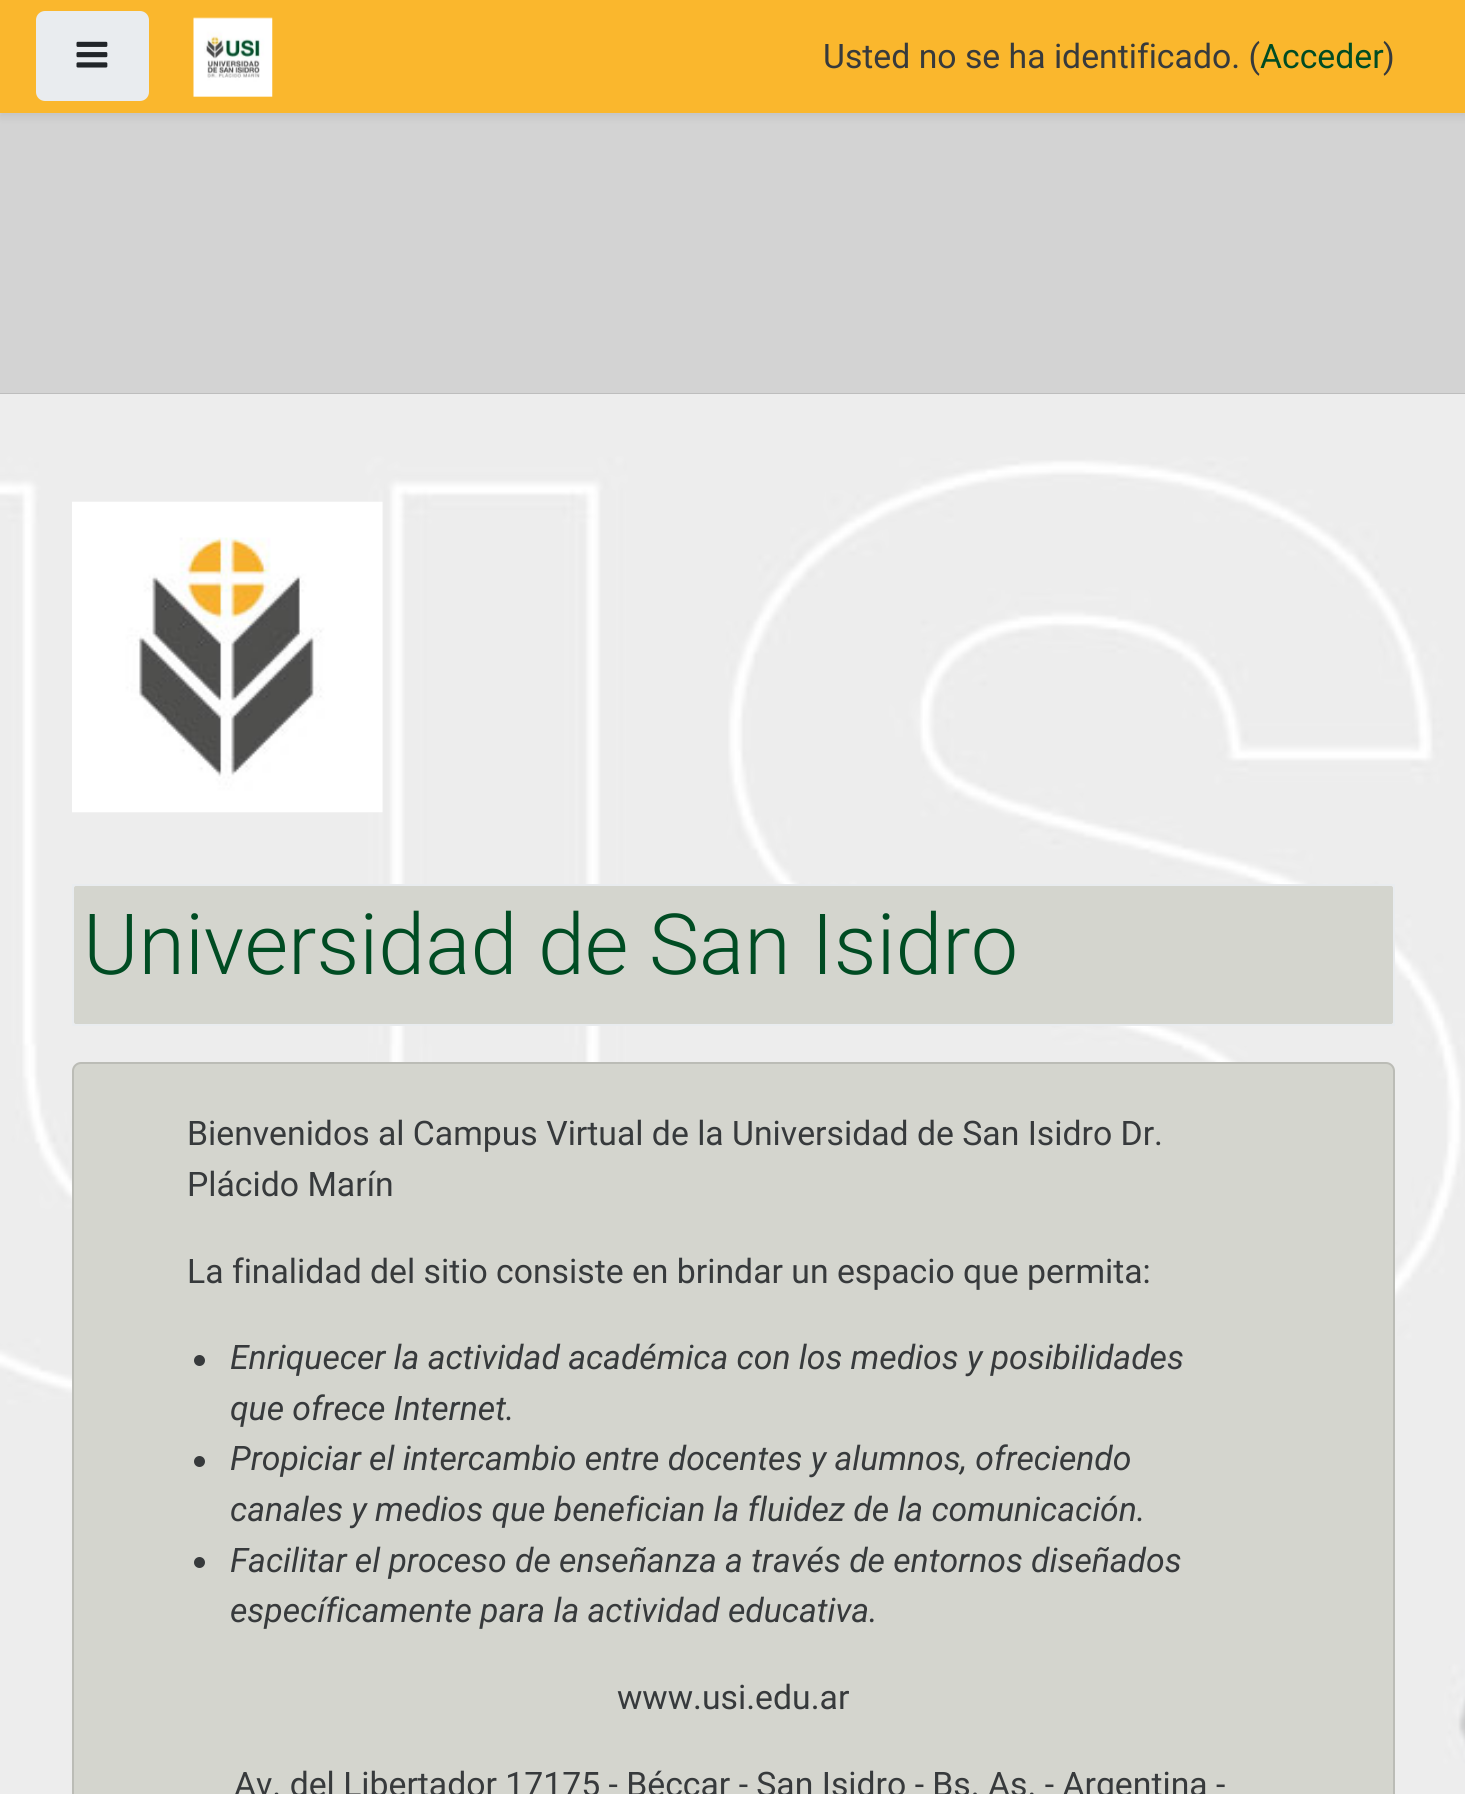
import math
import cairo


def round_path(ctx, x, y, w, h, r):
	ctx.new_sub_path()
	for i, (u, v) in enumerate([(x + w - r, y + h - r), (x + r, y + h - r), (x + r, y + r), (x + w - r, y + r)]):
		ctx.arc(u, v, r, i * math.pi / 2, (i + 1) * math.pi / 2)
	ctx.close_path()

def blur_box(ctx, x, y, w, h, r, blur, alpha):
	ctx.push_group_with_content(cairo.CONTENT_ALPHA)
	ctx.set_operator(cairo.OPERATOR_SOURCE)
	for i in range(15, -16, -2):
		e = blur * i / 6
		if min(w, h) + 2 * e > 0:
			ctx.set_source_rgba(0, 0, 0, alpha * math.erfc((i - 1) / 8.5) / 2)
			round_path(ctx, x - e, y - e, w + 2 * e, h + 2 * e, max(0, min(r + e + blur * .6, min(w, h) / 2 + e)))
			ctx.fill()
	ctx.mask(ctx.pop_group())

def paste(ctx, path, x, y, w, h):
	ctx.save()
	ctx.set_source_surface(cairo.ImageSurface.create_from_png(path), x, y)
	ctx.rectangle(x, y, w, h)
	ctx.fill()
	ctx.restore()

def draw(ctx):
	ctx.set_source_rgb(1, 1, 1)
	ctx.paint()
	paste(ctx, 'media/3.png', 0, 113, 1465, 1681)
	ctx.set_source_rgb(0, 0, 0)
	blur_box(ctx, 0, 5, 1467, 112, 0, 4.5, 0.08)
	ctx.set_source_rgb(0.98, 0.718, 0.176)
	ctx.rectangle(0, 0, 1465, 113)
	ctx.fill()
	ctx.set_source_rgb(0.914, 0.925, 0.937)
	round_path(ctx, 37, 12, 111, 88, 8)
	ctx.fill_preserve()
	ctx.stroke()
	paste(ctx, 'media/1.png', 76, 41, 32, 27)
	paste(ctx, 'media/2.png', 193, 17, 80, 80)
	ctx.select_font_face('Roboto')
	ctx.set_font_size(33.75)
	ctx.set_source_rgb(0.216, 0.227, 0.235)
	ctx.move_to(823, 68)
	ctx.show_text('Usted no se ha identificado. (')
	ctx.set_source_rgb(0, 0.298, 0.137)
	ctx.move_to(1260, 68)
	ctx.show_text('Acceder')
	ctx.set_source_rgb(0.216, 0.227, 0.235)
	ctx.move_to(1383, 68)
	ctx.show_text(')')
	ctx.save()
	ctx.rectangle(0, 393, 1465, 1)
	ctx.clip()
	ctx.set_source_rgb(0, 0, 0)
	blur_box(ctx, -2, 394, 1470, 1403, 0, 1, 0.3)
	ctx.restore()
	ctx.set_source_rgba(1, 1, 1, 0.6)
	ctx.rectangle(0, 394, 1465, 1400)
	ctx.fill()
	paste(ctx, 'media/4.png', 72, 501, 311, 312)
	ctx.set_source_rgb(0.831, 0.835, 0.808)
	round_path(ctx, 72, 884, 1323, 142, 9)
	ctx.fill()
	ctx.rectangle(73, 885, 1321, 140)
	ctx.set_source_rgb(0.914, 0.925, 0.937)
	ctx.stroke()
	ctx.select_font_face('Roboto Light')
	ctx.set_font_size(84.4)
	ctx.set_source_rgb(0, 0.298, 0.137)
	ctx.move_to(83, 974)
	ctx.show_text('Universidad de San Isidro')
	ctx.set_source_rgb(0.831, 0.835, 0.808)
	round_path(ctx, 72, 1062, 1323, 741, 9)
	ctx.fill()
	round_path(ctx, 73, 1063, 1321, 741, 8)
	ctx.set_source_rgba(0, 0, 0, 0.12)
	ctx.stroke()
	ctx.select_font_face('Roboto')
	ctx.set_font_size(33.75)
	ctx.set_source_rgb(0.216, 0.227, 0.235)
	for x, y, s in [
		(187, 1145, 'Bienvenidos al Campus Virtual de la Universidad de San Isidro Dr.'),
		(187, 1196, 'Plácido Marín'),
		(187, 1283, 'La finalidad del sitio consiste en brindar un espacio que permita:'),
	]:
		ctx.move_to(x, y)
		ctx.show_text(s)
	ctx.new_path()
	ctx.arc(199.5, 1360.5, 5.5, 0, 2 * math.pi)
	ctx.fill()
	ctx.select_font_face('Roboto', cairo.FONT_SLANT_ITALIC)
	ctx.move_to(230, 1369)
	ctx.show_text('Enriquecer la actividad académica con los medios y posibilidades')
	ctx.move_to(230, 1420)
	ctx.show_text('que ofrece Internet.')
	ctx.new_path()
	ctx.arc(199.5, 1461.5, 5.5, 0, 2 * math.pi)
	ctx.fill()
	ctx.move_to(230, 1470)
	ctx.show_text('Propiciar el intercambio entre docentes y alumnos, ofreciendo')
	ctx.move_to(230, 1521)
	ctx.show_text('canales y medios que benefician la fluidez de la comunicación.')
	ctx.new_path()
	ctx.arc(199.5, 1562.5, 5.5, 0, 2 * math.pi)
	ctx.fill()
	ctx.move_to(230, 1572)
	ctx.show_text('Facilitar el proceso de enseñanza a través de entornos diseñados')
	ctx.move_to(230, 1622)
	ctx.show_text('específicamente para la actividad educativa.')
	ctx.select_font_face('Roboto')
	ctx.move_to(617, 1709)
	ctx.show_text('www.usi.edu.ar')
	ctx.move_to(234, 1796)
	ctx.show_text('Av. del Libertador 17175 - Béccar - San Isidro - Bs. As. - Argentina -')


surface = cairo.ImageSurface(cairo.FORMAT_RGB24, 1465, 1794)
ctx = cairo.Context(surface)
options = cairo.FontOptions()
options.set_hint_metrics(cairo.HINT_METRICS_OFF)
options.set_hint_style(cairo.HINT_STYLE_NONE)
ctx.set_font_options(options)
ctx.set_miter_limit(4)
draw(ctx)
surface.write_to_png('image.png')
